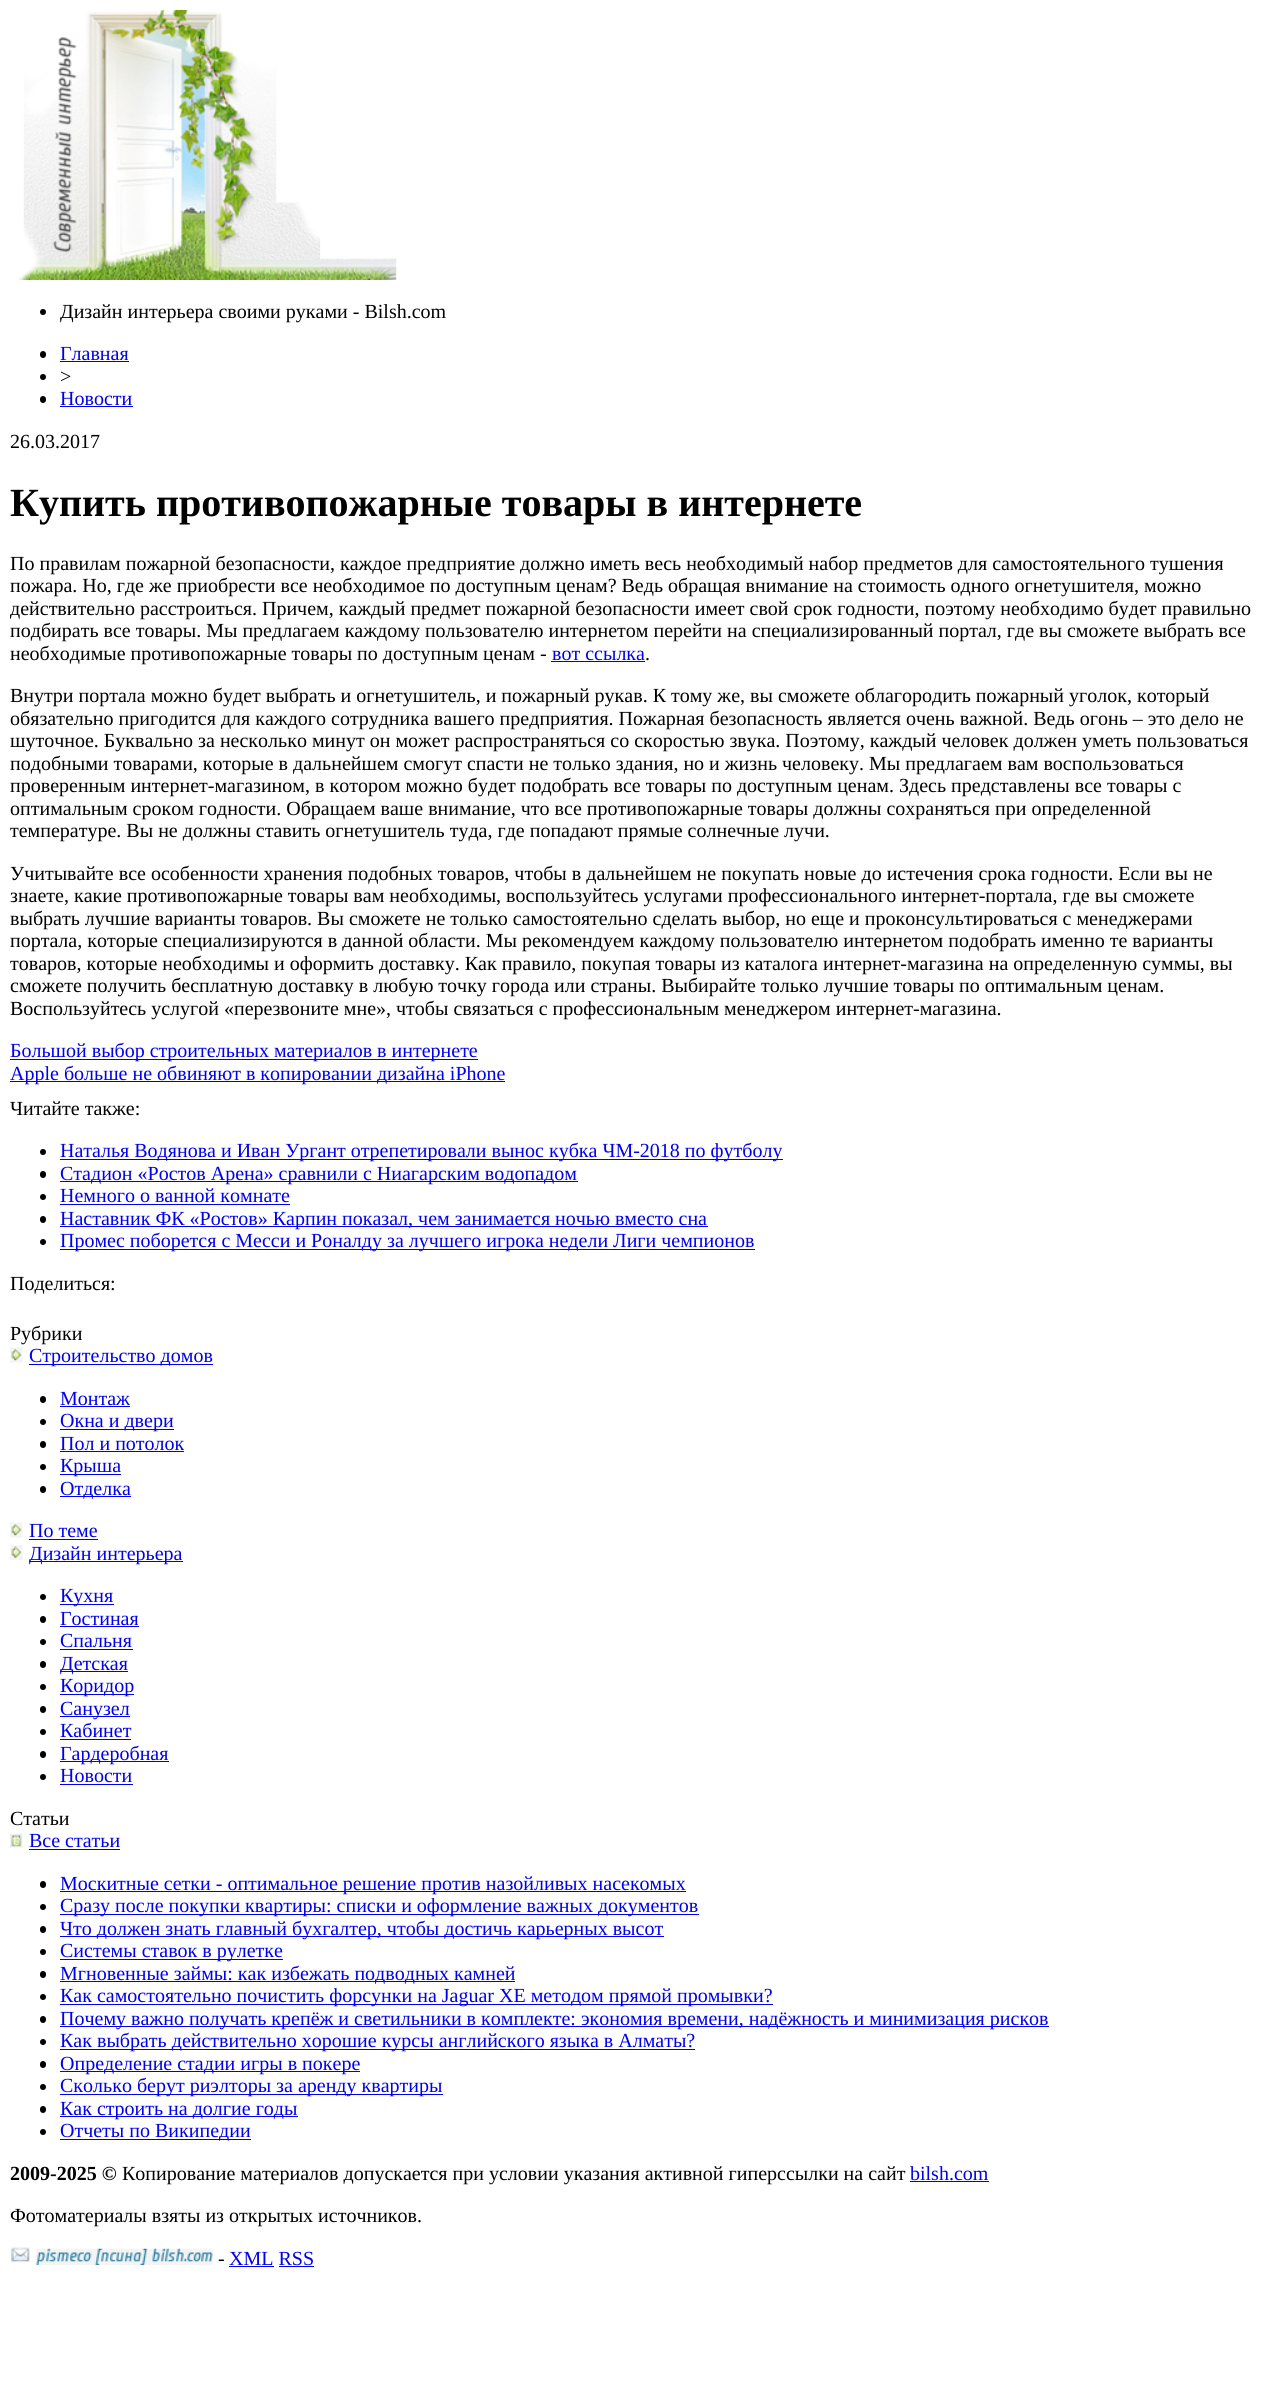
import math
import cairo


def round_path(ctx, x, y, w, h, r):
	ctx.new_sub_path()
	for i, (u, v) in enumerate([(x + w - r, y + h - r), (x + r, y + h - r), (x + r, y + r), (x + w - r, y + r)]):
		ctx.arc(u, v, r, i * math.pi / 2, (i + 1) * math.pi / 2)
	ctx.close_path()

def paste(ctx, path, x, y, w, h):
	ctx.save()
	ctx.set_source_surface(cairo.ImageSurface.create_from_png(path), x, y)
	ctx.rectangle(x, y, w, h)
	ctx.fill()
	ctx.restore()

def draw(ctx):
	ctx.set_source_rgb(1, 1, 1)
	ctx.paint()
	paste(ctx, 'media/1.png', 18, 10, 379, 270)
	ctx.set_source_rgb(0, 0, 0)
	ctx.arc(43, 312, 3, 0, 2 * math.pi)
	ctx.fill()
	ctx.select_font_face('Liberation Serif')
	ctx.set_font_size(20)
	ctx.move_to(60, 318)
	ctx.show_text('Дизайн интерьера своими руками - Bilsh.com')
	round_path(ctx, 40, 351, 6, 7, 3)
	ctx.fill()
	ctx.set_source_rgb(0, 0, 0.933)
	ctx.move_to(60, 360)
	ctx.show_text('Главная')
	ctx.rectangle(60, 361, 69, 1)
	ctx.fill()
	ctx.set_source_rgb(0, 0, 0)
	ctx.arc(43, 377, 3, 0, 2 * math.pi)
	ctx.fill()
	ctx.move_to(60, 383)
	ctx.show_text('>')
	round_path(ctx, 40, 396, 6, 7, 3)
	ctx.fill()
	ctx.set_source_rgb(0, 0, 0.933)
	ctx.move_to(60, 405)
	ctx.show_text('Новости')
	ctx.rectangle(60, 406, 73, 1)
	ctx.fill()
	ctx.set_source_rgb(0, 0, 0)
	ctx.move_to(10, 448)
	ctx.show_text('26.03.2017')
	ctx.select_font_face('Liberation Serif', cairo.FONT_SLANT_NORMAL, cairo.FONT_WEIGHT_BOLD)
	ctx.set_font_size(40)
	ctx.move_to(10, 516)
	ctx.show_text('Купить противопожарные товары в интернете')
	ctx.select_font_face('Liberation Serif')
	ctx.set_font_size(20)
	for x, y, s in [
		(10, 570, 'По правилам пожарной безопасности, каждое предприятие должно иметь весь необходимый набор предметов для самостоятельного тушения'),
		(10, 592, 'пожара. Но, где же приобрести все необходимое по доступным ценам? Ведь обращая внимание на стоимость одного огнетушителя, можно'),
		(10, 615, 'действительно расстроиться. Причем, каждый предмет пожарной безопасности имеет свой срок годности, поэтому необходимо будет правильно'),
		(10, 637, 'подбирать все товары. Мы предлагаем каждому пользователю интернетом перейти на специализированный портал, где вы сможете выбрать все'),
		(10, 660, 'необходимые противопожарные товары по доступным ценам -'),
	]:
		ctx.move_to(x, y)
		ctx.show_text(s)
	ctx.set_source_rgb(0, 0, 0.933)
	ctx.move_to(552, 660)
	ctx.show_text('вот ссылка')
	ctx.rectangle(551, 661, 94, 1)
	ctx.fill()
	ctx.set_source_rgb(0, 0, 0)
	for x, y, s in [
		(645, 660, '.'),
		(10, 702, 'Внутри портала можно будет выбрать и огнетушитель, и пожарный рукав. К тому же, вы сможете облагородить пожарный уголок, который'),
		(10, 725, 'обязательно пригодится для каждого сотрудника вашего предприятия. Пожарная безопасность является очень важной. Ведь огонь – это дело не'),
		(10, 747, 'шуточное. Буквально за несколько минут он может распространяться со скоростью звука. Поэтому, каждый человек должен уметь пользоваться'),
		(10, 770, 'подобными товарами, которые в дальнейшем смогут спасти не только здания, но и жизнь человеку. Мы предлагаем вам воспользоваться'),
		(10, 792, 'проверенным интернет-магазином, в котором можно будет подобрать все товары по доступным ценам. Здесь представлены все товары с'),
		(10, 815, 'оптимальным сроком годности. Обращаем ваше внимание, что все противопожарные товары должны сохраняться при определенной'),
		(10, 837, 'температуре. Вы не должны ставить огнетушитель туда, где попадают прямые солнечные лучи.'),
		(10, 880, 'Учитывайте все особенности хранения подобных товаров, чтобы в дальнейшем не покупать новые до истечения срока годности. Если вы не'),
		(10, 902, 'знаете, какие противопожарные товары вам необходимы, воспользуйтесь услугами профессионального интернет-портала, где вы сможете'),
		(10, 925, 'выбрать лучшие варианты товаров. Вы сможете не только самостоятельно сделать выбор, но еще и проконсультироваться с менеджерами'),
		(10, 947, 'портала, которые специализируются в данной области. Мы рекомендуем каждому пользователю интернетом подобрать именно те варианты'),
		(10, 970, 'товаров, которые необходимы и оформить доставку. Как правило, покупая товары из каталога интернет-магазина на определенную суммы, вы'),
		(10, 992, 'сможете получить бесплатную доставку в любую точку города или страны. Выбирайте только лучшие товары по оптимальным ценам.'),
		(10, 1015, 'Воспользуйтесь услугой «перезвоните мне», чтобы связаться с профессиональным менеджером интернет-магазина.'),
	]:
		ctx.move_to(x, y)
		ctx.show_text(s)
	ctx.set_source_rgb(0, 0, 0.933)
	ctx.rectangle(10, 1059, 468, 1)
	ctx.fill()
	ctx.move_to(10, 1057)
	ctx.show_text('Большой выбор строительных материалов в интернете')
	ctx.rectangle(10, 1081, 495, 1)
	ctx.fill()
	ctx.move_to(10, 1080)
	ctx.show_text('Apple больше не обвиняют в копировании дизайна iPhone')
	ctx.set_source_rgb(0, 0, 0)
	ctx.move_to(10, 1115)
	ctx.show_text('Читайте также:')
	ctx.new_path()
	ctx.arc(43, 1152, 3, 0, 2 * math.pi)
	ctx.fill()
	ctx.set_source_rgb(0, 0, 0.933)
	ctx.rectangle(60, 1159, 723, 1)
	ctx.fill()
	ctx.move_to(60, 1157)
	ctx.show_text('Наталья Водянова и Иван Ургант отрепетировали вынос кубка ЧМ-2018 по футболу')
	ctx.set_source_rgb(0, 0, 0)
	round_path(ctx, 40, 1171, 6, 7, 3)
	ctx.fill()
	ctx.set_source_rgb(0, 0, 0.933)
	ctx.rectangle(60, 1181, 518, 1)
	ctx.fill()
	ctx.move_to(60, 1180)
	ctx.show_text('Стадион «Ростов Арена» сравнили с Ниагарским водопадом')
	ctx.set_source_rgb(0, 0, 0)
	ctx.new_path()
	ctx.arc(43, 1197, 3, 0, 2 * math.pi)
	ctx.fill()
	ctx.set_source_rgb(0, 0, 0.933)
	ctx.move_to(60, 1202)
	ctx.show_text('Немного о ванной комнате')
	ctx.rectangle(60, 1204, 230, 1)
	ctx.fill()
	ctx.set_source_rgb(0, 0, 0)
	round_path(ctx, 40, 1216, 6, 7, 3)
	ctx.fill()
	ctx.set_source_rgb(0, 0, 0.933)
	ctx.rectangle(60, 1226, 648, 1)
	ctx.fill()
	ctx.move_to(60, 1225)
	ctx.show_text('Наставник ФК «Ростов» Карпин показал, чем занимается ночью вместо сна')
	ctx.set_source_rgb(0, 0, 0)
	ctx.new_path()
	ctx.arc(43, 1242, 3, 0, 2 * math.pi)
	ctx.fill()
	ctx.set_source_rgb(0, 0, 0.933)
	ctx.rectangle(60, 1249, 695, 1)
	ctx.fill()
	ctx.move_to(60, 1247)
	ctx.show_text('Промес поборется с Месси и Роналду за лучшего игрока недели Лиги чемпионов')
	ctx.set_source_rgb(0, 0, 0)
	ctx.move_to(10, 1290)
	ctx.show_text('Поделиться:')
	ctx.move_to(10, 1340)
	ctx.show_text('Рубрики')
	paste(ctx, 'media/2.png', 10, 1347, 13, 16)
	ctx.set_source_rgb(0, 0, 0.933)
	ctx.rectangle(29, 1364, 184, 1)
	ctx.fill()
	ctx.move_to(29, 1362)
	ctx.show_text('Строительство домов')
	ctx.set_source_rgb(0, 0, 0)
	round_path(ctx, 40, 1396, 6, 7, 3)
	ctx.fill()
	ctx.set_source_rgb(0, 0, 0.933)
	ctx.move_to(60, 1405)
	ctx.show_text('Монтаж')
	ctx.rectangle(60, 1406, 70, 1)
	ctx.fill()
	ctx.set_source_rgb(0, 0, 0)
	ctx.arc(43, 1422, 3, 0, 2 * math.pi)
	ctx.fill()
	ctx.set_source_rgb(0, 0, 0.933)
	ctx.rectangle(60, 1429, 114, 1)
	ctx.fill()
	ctx.move_to(60, 1427)
	ctx.show_text('Окна и двери')
	ctx.set_source_rgb(0, 0, 0)
	round_path(ctx, 40, 1441, 6, 7, 3)
	ctx.fill()
	ctx.set_source_rgb(0, 0, 0.933)
	ctx.move_to(60, 1450)
	ctx.show_text('Пол и потолок')
	ctx.rectangle(60, 1451, 124, 1)
	ctx.fill()
	ctx.set_source_rgb(0, 0, 0)
	ctx.arc(43, 1467, 3, 0, 2 * math.pi)
	ctx.fill()
	ctx.set_source_rgb(0, 0, 0.933)
	ctx.rectangle(60, 1474, 61, 1)
	ctx.fill()
	ctx.move_to(60, 1472)
	ctx.show_text('Крыша')
	ctx.set_source_rgb(0, 0, 0)
	round_path(ctx, 40, 1486, 6, 7, 3)
	ctx.fill()
	ctx.set_source_rgb(0, 0, 0.933)
	ctx.rectangle(60, 1496, 71, 1)
	ctx.fill()
	ctx.move_to(60, 1495)
	ctx.show_text('Отделка')
	paste(ctx, 'media/2.png', 10, 1522, 13, 16)
	ctx.move_to(29, 1537)
	ctx.show_text('По теме')
	ctx.rectangle(29, 1539, 69, 1)
	ctx.fill()
	paste(ctx, 'media/3.png', 10, 1545, 13, 15)
	ctx.rectangle(29, 1561, 154, 1)
	ctx.fill()
	ctx.move_to(29, 1560)
	ctx.show_text('Дизайн интерьера')
	ctx.set_source_rgb(0, 0, 0)
	ctx.new_path()
	ctx.arc(43, 1597, 3, 0, 2 * math.pi)
	ctx.fill()
	ctx.set_source_rgb(0, 0, 0.933)
	ctx.rectangle(60, 1604, 54, 1)
	ctx.fill()
	ctx.move_to(60, 1602)
	ctx.show_text('Кухня')
	ctx.set_source_rgb(0, 0, 0)
	round_path(ctx, 40, 1616, 6, 7, 3)
	ctx.fill()
	ctx.set_source_rgb(0, 0, 0.933)
	ctx.move_to(60, 1625)
	ctx.show_text('Гостиная')
	ctx.rectangle(60, 1626, 79, 1)
	ctx.fill()
	ctx.set_source_rgb(0, 0, 0)
	ctx.arc(43, 1642, 3, 0, 2 * math.pi)
	ctx.fill()
	ctx.set_source_rgb(0, 0, 0.933)
	ctx.move_to(60, 1647)
	ctx.show_text('Спальня')
	ctx.rectangle(60, 1649, 73, 1)
	ctx.fill()
	ctx.set_source_rgb(0, 0, 0)
	round_path(ctx, 40, 1661, 6, 7, 3)
	ctx.fill()
	ctx.set_source_rgb(0, 0, 0.933)
	ctx.rectangle(60, 1671, 68, 1)
	ctx.fill()
	ctx.move_to(60, 1670)
	ctx.show_text('Детская')
	ctx.set_source_rgb(0, 0, 0)
	ctx.new_path()
	ctx.arc(43, 1687, 3, 0, 2 * math.pi)
	ctx.fill()
	ctx.set_source_rgb(0, 0, 0.933)
	ctx.rectangle(60, 1694, 74, 1)
	ctx.fill()
	ctx.move_to(60, 1692)
	ctx.show_text('Коридор')
	ctx.set_source_rgb(0, 0, 0)
	round_path(ctx, 40, 1706, 6, 7, 3)
	ctx.fill()
	ctx.set_source_rgb(0, 0, 0.933)
	ctx.rectangle(60, 1716, 70, 1)
	ctx.fill()
	ctx.move_to(60, 1715)
	ctx.show_text('Санузел')
	ctx.set_source_rgb(0, 0, 0)
	ctx.new_path()
	ctx.arc(43, 1732, 3, 0, 2 * math.pi)
	ctx.fill()
	ctx.set_source_rgb(0, 0, 0.933)
	ctx.move_to(60, 1737)
	ctx.show_text('Кабинет')
	ctx.rectangle(60, 1739, 71, 1)
	ctx.fill()
	ctx.set_source_rgb(0, 0, 0)
	round_path(ctx, 40, 1751, 6, 7, 3)
	ctx.fill()
	ctx.set_source_rgb(0, 0, 0.933)
	ctx.rectangle(60, 1761, 109, 1)
	ctx.fill()
	ctx.move_to(60, 1760)
	ctx.show_text('Гардеробная')
	ctx.set_source_rgb(0, 0, 0)
	ctx.new_path()
	ctx.arc(43, 1777, 3, 0, 2 * math.pi)
	ctx.fill()
	ctx.set_source_rgb(0, 0, 0.933)
	ctx.move_to(60, 1782)
	ctx.show_text('Новости')
	ctx.rectangle(60, 1784, 73, 1)
	ctx.fill()
	ctx.set_source_rgb(0, 0, 0)
	ctx.move_to(10, 1825)
	ctx.show_text('Статьи')
	paste(ctx, 'media/4.png', 10, 1833, 13, 15)
	ctx.set_source_rgb(0, 0, 0.933)
	ctx.move_to(29, 1847)
	ctx.show_text('Все статьи')
	ctx.rectangle(29, 1849, 91, 1)
	ctx.fill()
	ctx.set_source_rgb(0, 0, 0)
	round_path(ctx, 40, 1881, 6, 7, 3)
	ctx.fill()
	ctx.set_source_rgb(0, 0, 0.933)
	ctx.rectangle(60, 1891, 626, 1)
	ctx.fill()
	ctx.move_to(60, 1890)
	ctx.show_text('Москитные сетки - оптимальное решение против назойливых насекомых')
	ctx.set_source_rgb(0, 0, 0)
	ctx.new_path()
	ctx.arc(43, 1907, 3, 0, 2 * math.pi)
	ctx.fill()
	ctx.set_source_rgb(0, 0, 0.933)
	ctx.rectangle(60, 1914, 639, 1)
	ctx.fill()
	ctx.move_to(60, 1912)
	ctx.show_text('Сразу после покупки квартиры: списки и оформление важных документов')
	ctx.set_source_rgb(0, 0, 0)
	round_path(ctx, 40, 1926, 6, 7, 3)
	ctx.fill()
	ctx.set_source_rgb(0, 0, 0.933)
	ctx.rectangle(60, 1936, 604, 1)
	ctx.fill()
	ctx.move_to(60, 1935)
	ctx.show_text('Что должен знать главный бухгалтер, чтобы достичь карьерных высот')
	ctx.set_source_rgb(0, 0, 0)
	ctx.new_path()
	ctx.arc(43, 1952, 3, 0, 2 * math.pi)
	ctx.fill()
	ctx.set_source_rgb(0, 0, 0.933)
	ctx.rectangle(60, 1959, 223, 1)
	ctx.fill()
	ctx.move_to(60, 1957)
	ctx.show_text('Системы ставок в рулетке')
	ctx.set_source_rgb(0, 0, 0)
	round_path(ctx, 40, 1971, 6, 7, 3)
	ctx.fill()
	ctx.set_source_rgb(0, 0, 0.933)
	ctx.rectangle(60, 1981, 455, 1)
	ctx.fill()
	ctx.move_to(60, 1980)
	ctx.show_text('Мгновенные займы: как избежать подводных камней')
	ctx.set_source_rgb(0, 0, 0)
	ctx.new_path()
	ctx.arc(43, 1997, 3, 0, 2 * math.pi)
	ctx.fill()
	ctx.set_source_rgb(0, 0, 0.933)
	ctx.rectangle(60, 2004, 713, 1)
	ctx.fill()
	ctx.move_to(60, 2002)
	ctx.show_text('Как самостоятельно почистить форсунки на Jaguar XE методом прямой промывки?')
	ctx.set_source_rgb(0, 0, 0)
	round_path(ctx, 40, 2016, 6, 7, 3)
	ctx.fill()
	ctx.set_source_rgb(0, 0, 0.933)
	ctx.rectangle(60, 2026, 989, 1)
	ctx.fill()
	ctx.move_to(60, 2025)
	ctx.show_text('Почему важно получать крепёж и светильники в комплекте: экономия времени, надёжность и минимизация рисков')
	ctx.set_source_rgb(0, 0, 0)
	ctx.new_path()
	ctx.arc(43, 2042, 3, 0, 2 * math.pi)
	ctx.fill()
	ctx.set_source_rgb(0, 0, 0.933)
	ctx.rectangle(60, 2049, 635, 1)
	ctx.fill()
	ctx.move_to(60, 2047)
	ctx.show_text('Как выбрать действительно хорошие курсы английского языка в Алматы?')
	ctx.set_source_rgb(0, 0, 0)
	round_path(ctx, 40, 2061, 6, 7, 3)
	ctx.fill()
	ctx.set_source_rgb(0, 0, 0.933)
	ctx.rectangle(60, 2071, 300, 1)
	ctx.fill()
	ctx.move_to(60, 2070)
	ctx.show_text('Определение стадии игры в покере')
	ctx.set_source_rgb(0, 0, 0)
	ctx.new_path()
	ctx.arc(43, 2087, 3, 0, 2 * math.pi)
	ctx.fill()
	ctx.set_source_rgb(0, 0, 0.933)
	ctx.rectangle(60, 2094, 383, 1)
	ctx.fill()
	ctx.move_to(60, 2092)
	ctx.show_text('Сколько берут риэлторы за аренду квартиры')
	ctx.set_source_rgb(0, 0, 0)
	round_path(ctx, 40, 2106, 6, 7, 3)
	ctx.fill()
	ctx.set_source_rgb(0, 0, 0.933)
	ctx.rectangle(60, 2116, 238, 1)
	ctx.fill()
	ctx.move_to(60, 2115)
	ctx.show_text('Как строить на долгие годы')
	ctx.set_source_rgb(0, 0, 0)
	ctx.new_path()
	ctx.arc(43, 2132, 3, 0, 2 * math.pi)
	ctx.fill()
	ctx.set_source_rgb(0, 0, 0.933)
	ctx.rectangle(60, 2139, 191, 1)
	ctx.fill()
	ctx.move_to(60, 2137)
	ctx.show_text('Отчеты по Википедии')
	ctx.select_font_face('Liberation Serif', cairo.FONT_SLANT_NORMAL, cairo.FONT_WEIGHT_BOLD)
	ctx.set_source_rgb(0, 0, 0)
	ctx.move_to(10, 2180)
	ctx.show_text('2009-2025 ©')
	ctx.select_font_face('Liberation Serif')
	ctx.move_to(122, 2180)
	ctx.show_text('Копирование материалов допускается при условии указания активной гиперссылки на сайт')
	ctx.set_source_rgb(0, 0, 0.933)
	ctx.move_to(910, 2180)
	ctx.show_text('bilsh.com')
	ctx.rectangle(910, 2181, 79, 1)
	ctx.fill()
	ctx.set_source_rgb(0, 0, 0)
	ctx.move_to(10, 2222)
	ctx.show_text('Фотоматериалы взяты из открытых источников.')
	paste(ctx, 'media/5.png', 10, 2247, 20, 16)
	paste(ctx, 'media/6.png', 36, 2248, 177, 17)
	ctx.move_to(218, 2265)
	ctx.show_text('-')
	ctx.set_source_rgb(0, 0, 0.933)
	ctx.move_to(229, 2265)
	ctx.show_text('XML RSS')
	ctx.rectangle(229, 2266, 45, 1)
	ctx.fill()
	ctx.rectangle(279, 2266, 35, 1)
	ctx.fill()


surface = cairo.ImageSurface(cairo.FORMAT_RGB24, 1274, 2400)
ctx = cairo.Context(surface)
options = cairo.FontOptions()
options.set_hint_metrics(cairo.HINT_METRICS_OFF)
options.set_hint_style(cairo.HINT_STYLE_NONE)
ctx.set_font_options(options)
ctx.set_miter_limit(4)
draw(ctx)
surface.write_to_png('image.png')
